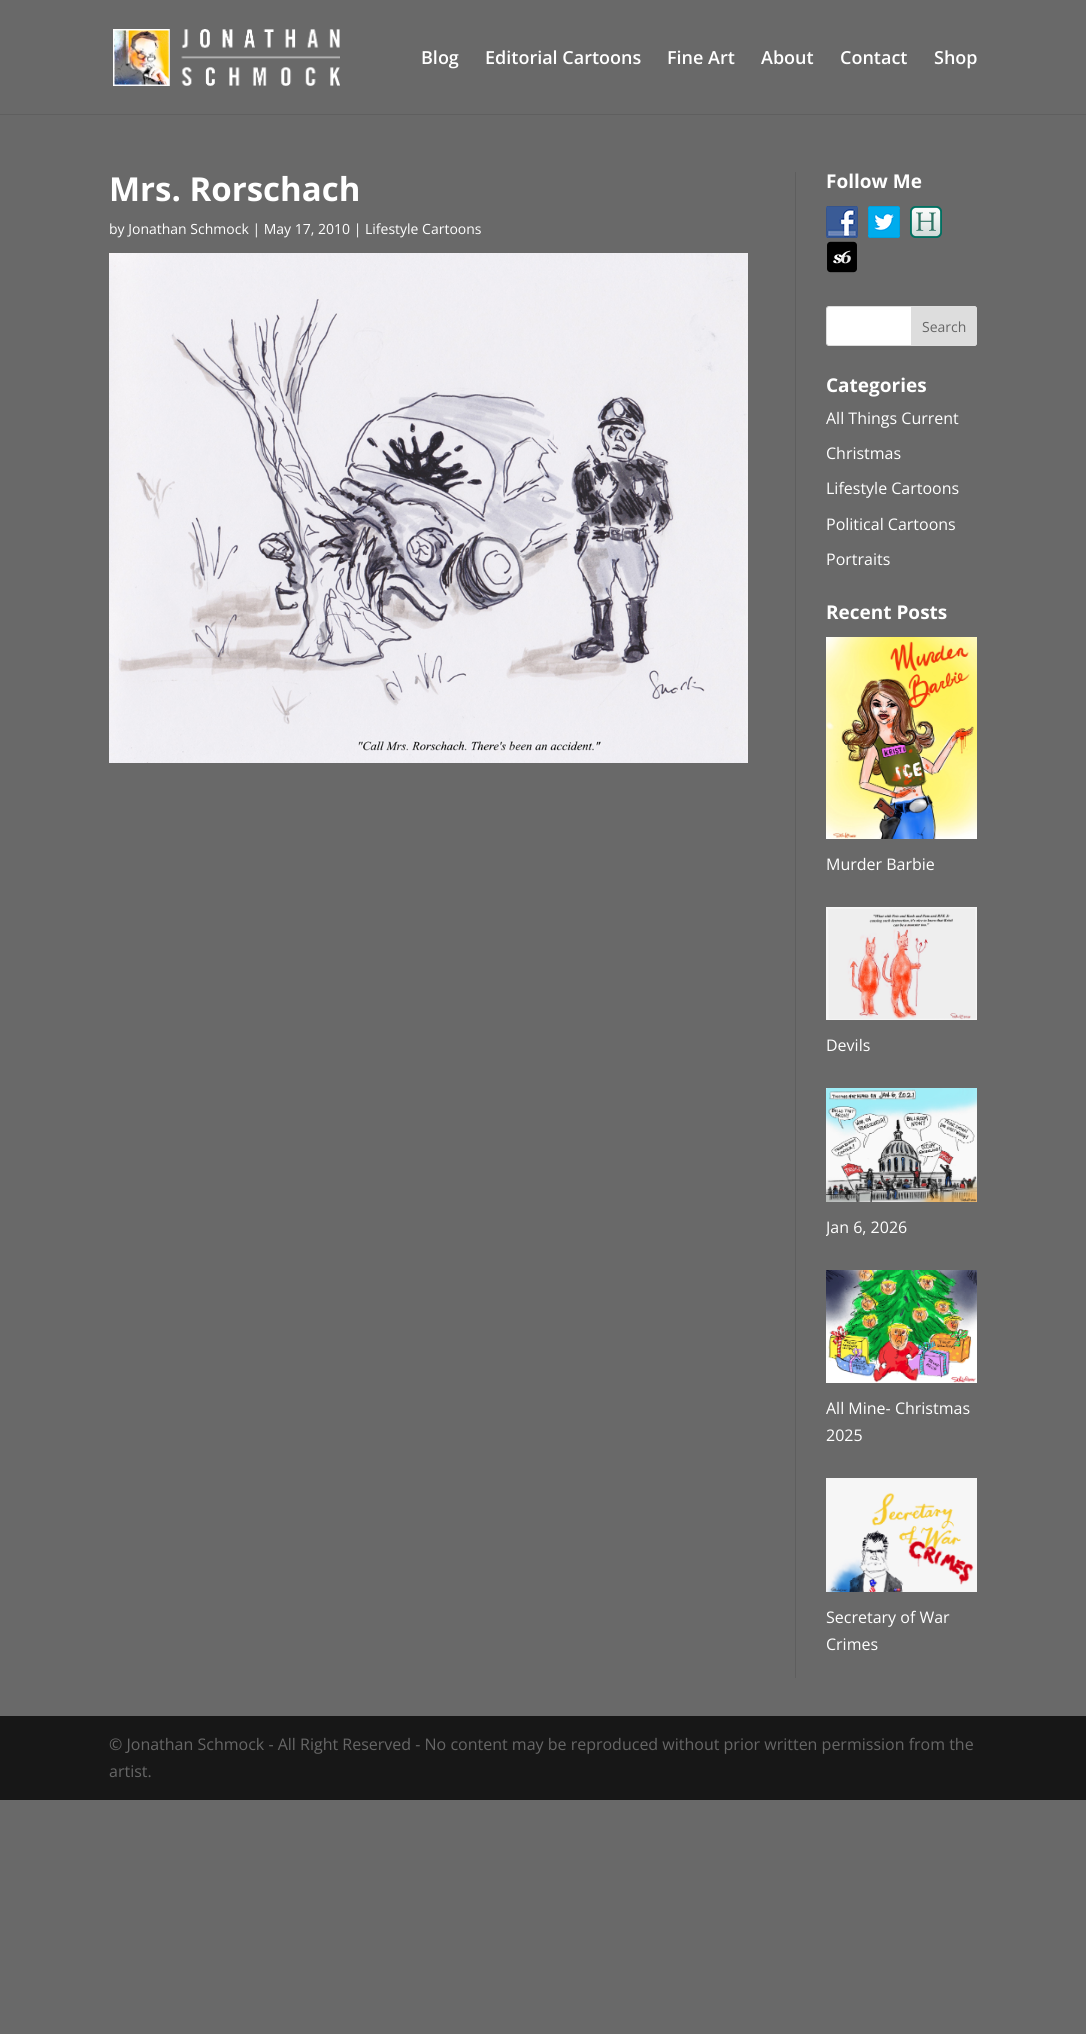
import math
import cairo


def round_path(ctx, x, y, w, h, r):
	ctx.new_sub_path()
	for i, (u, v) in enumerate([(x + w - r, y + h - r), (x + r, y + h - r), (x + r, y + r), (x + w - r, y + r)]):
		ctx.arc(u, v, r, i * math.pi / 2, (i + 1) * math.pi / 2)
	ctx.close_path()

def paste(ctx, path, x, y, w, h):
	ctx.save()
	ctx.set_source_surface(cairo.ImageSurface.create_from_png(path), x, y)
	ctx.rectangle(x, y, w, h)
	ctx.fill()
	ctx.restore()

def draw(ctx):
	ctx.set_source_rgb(0.412, 0.412, 0.412)
	ctx.paint()
	ctx.set_source_rgb(0.373, 0.373, 0.373)
	ctx.rectangle(0, 114, 1086, 1)
	ctx.fill()
	paste(ctx, 'media/1.png', 113, 29, 227, 57)
	ctx.select_font_face('Open Sans SemiBold')
	ctx.set_font_size(18)
	ctx.set_source_rgb(1, 1, 1)
	for x, y, s in [
		(421, 64, 'Blog'),
		(485, 64, 'Editorial Cartoons'),
		(667, 64, 'Fine Art'),
		(761, 64, 'About'),
		(840, 64, 'Contact'),
		(934, 64, 'Shop'),
	]:
		ctx.move_to(x, y)
		ctx.show_text(s)
	ctx.set_source_rgb(0.369, 0.369, 0.369)
	ctx.rectangle(795, 172, 1, 1506)
	ctx.fill()
	ctx.select_font_face('Open Sans', cairo.FONT_SLANT_NORMAL, cairo.FONT_WEIGHT_BOLD)
	ctx.set_font_size(33)
	ctx.set_source_rgb(1, 1, 1)
	ctx.move_to(109, 201)
	ctx.show_text('Mrs. Rorschach')
	ctx.select_font_face('Open Sans')
	ctx.set_font_size(14)
	ctx.move_to(109, 234)
	ctx.show_text('by Jonathan Schmock | May 17, 2010 | Lifestyle Cartoons')
	paste(ctx, 'media/2.png', 109, 253, 639, 510)
	ctx.select_font_face('Open Sans', cairo.FONT_SLANT_NORMAL, cairo.FONT_WEIGHT_BOLD)
	ctx.set_font_size(19)
	ctx.move_to(826, 188)
	ctx.show_text('Follow Me')
	paste(ctx, 'media/3.png', 826, 206, 32, 32)
	paste(ctx, 'media/4.png', 868, 206, 32, 32)
	paste(ctx, 'media/5.png', 910, 206, 32, 32)
	paste(ctx, 'media/6.png', 827, 241, 30, 32)
	round_path(ctx, 826.5, 306.5, 150, 39, 2.5)
	ctx.fill_preserve()
	ctx.set_source_rgb(0.867, 0.867, 0.867)
	ctx.set_line_width(1)
	ctx.stroke()
	ctx.new_path()
	ctx.move_to(911.5, 306.5)
	ctx.line_to(974, 306.5)
	ctx.curve_to(975.5, 306.5, 976.5, 307.5, 976.5, 309)
	ctx.line_to(976.5, 343)
	ctx.curve_to(976.5, 344.5, 975.5, 345.5, 974, 345.5)
	ctx.line_to(911.5, 345.5)
	ctx.close_path()
	ctx.fill_preserve()
	ctx.stroke()
	ctx.select_font_face('Open Sans')
	ctx.set_font_size(14)
	ctx.set_source_rgb(0.4, 0.4, 0.4)
	ctx.move_to(922, 332)
	ctx.show_text('Search')
	ctx.select_font_face('Open Sans', cairo.FONT_SLANT_NORMAL, cairo.FONT_WEIGHT_BOLD)
	ctx.set_font_size(19)
	ctx.set_source_rgb(1, 1, 1)
	ctx.move_to(826, 392)
	ctx.show_text('Categories')
	ctx.select_font_face('Open Sans')
	ctx.set_font_size(16)
	for x, y, s in [
		(826, 424, 'All Things Current'),
		(826, 459, 'Christmas'),
		(826, 494, 'Lifestyle Cartoons'),
		(826, 530, 'Political Cartoons'),
		(826, 565, 'Portraits'),
	]:
		ctx.move_to(x, y)
		ctx.show_text(s)
	ctx.select_font_face('Open Sans', cairo.FONT_SLANT_NORMAL, cairo.FONT_WEIGHT_BOLD)
	ctx.set_font_size(19)
	ctx.move_to(826, 619)
	ctx.show_text('Recent Posts')
	paste(ctx, 'media/7.png', 826, 637, 151, 202)
	ctx.select_font_face('Open Sans')
	ctx.set_font_size(16)
	ctx.move_to(826, 870)
	ctx.show_text('Murder Barbie')
	paste(ctx, 'media/8.png', 826, 907, 151, 113)
	ctx.move_to(826, 1051)
	ctx.show_text('Devils')
	paste(ctx, 'media/9.png', 826, 1088, 151, 114)
	ctx.save()
	ctx.rectangle(826, 1083, 151, 158)
	ctx.clip()
	ctx.move_to(826, 1233)
	ctx.show_text('Jan 6, 2026')
	ctx.restore()
	paste(ctx, 'media/10.png', 826, 1270, 151, 113)
	ctx.move_to(826, 1414)
	ctx.show_text('All Mine- Christmas')
	ctx.move_to(826, 1441)
	ctx.show_text('2025')
	paste(ctx, 'media/11.png', 826, 1478, 151, 114)
	ctx.move_to(826, 1623)
	ctx.show_text('Secretary of War')
	ctx.move_to(826, 1650)
	ctx.show_text('Crimes')
	ctx.set_source_rgb(0.09, 0.09, 0.09)
	ctx.rectangle(0, 1716, 1086, 84)
	ctx.fill()
	ctx.set_source_rgb(0.4, 0.4, 0.4)
	ctx.move_to(109, 1750)
	ctx.show_text('© Jonathan Schmock - All Right Reserved - No content may be reproduced without prior written permission from the')
	ctx.move_to(109, 1777)
	ctx.show_text('artist.')


surface = cairo.ImageSurface(cairo.FORMAT_RGB24, 1086, 2034)
ctx = cairo.Context(surface)
options = cairo.FontOptions()
options.set_hint_metrics(cairo.HINT_METRICS_OFF)
options.set_hint_style(cairo.HINT_STYLE_NONE)
ctx.set_font_options(options)
ctx.set_miter_limit(4)
draw(ctx)
surface.write_to_png('image.png')
